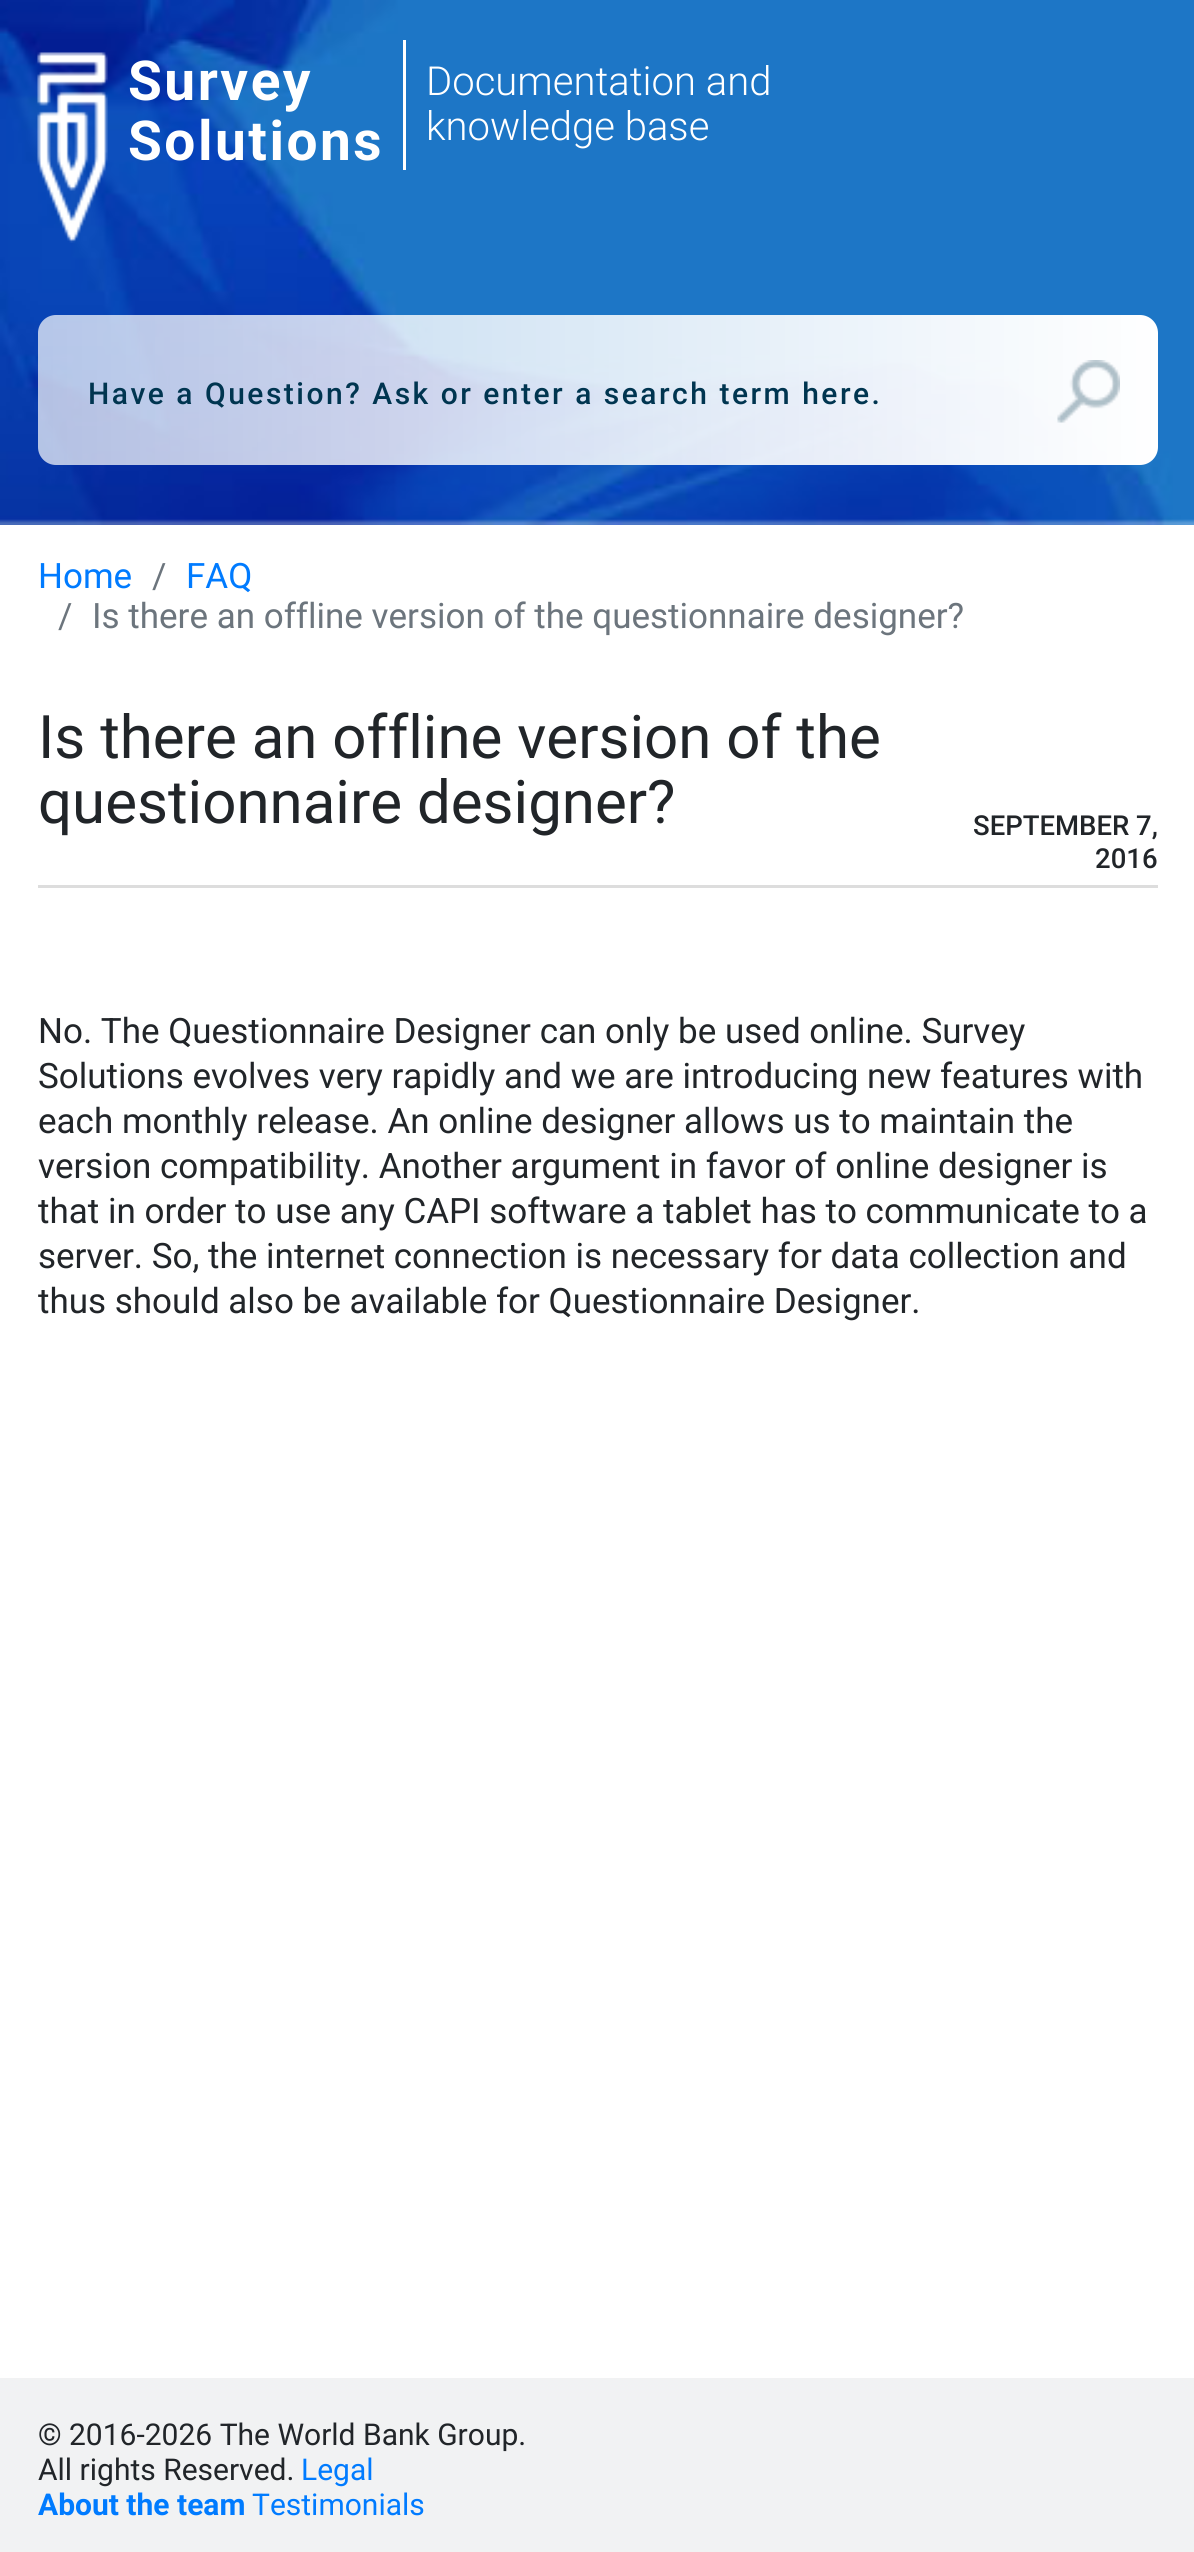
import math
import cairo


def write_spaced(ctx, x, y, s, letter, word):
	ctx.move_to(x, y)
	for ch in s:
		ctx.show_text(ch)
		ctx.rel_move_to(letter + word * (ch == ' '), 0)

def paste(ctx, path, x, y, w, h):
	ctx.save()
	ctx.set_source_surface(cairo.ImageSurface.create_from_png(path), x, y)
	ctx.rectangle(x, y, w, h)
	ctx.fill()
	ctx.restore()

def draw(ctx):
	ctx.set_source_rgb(1, 1, 1)
	ctx.paint()
	paste(ctx, 'media/1.png', 0, 0, 1194, 525)
	paste(ctx, 'media/2.png', 37, 52, 71, 191)
	ctx.select_font_face('Roboto', cairo.FONT_SLANT_NORMAL, cairo.FONT_WEIGHT_BOLD)
	ctx.set_font_size(55)
	ctx.set_source_rgb(1, 1, 1)
	write_spaced(ctx, 128, 100, 'Survey', 2.5, 0)
	write_spaced(ctx, 128, 160, 'Solutions', 2.5, 0)
	ctx.rectangle(403, 40, 3, 130)
	ctx.fill()
	ctx.select_font_face('Roboto Light')
	ctx.set_font_size(40)
	ctx.move_to(426, 95)
	ctx.show_text('Documentation and')
	ctx.move_to(426, 140)
	ctx.show_text('knowledge base')
	ctx.select_font_face('Roboto Medium')
	ctx.set_font_size(30)
	ctx.set_source_rgb(0, 0.208, 0.314)
	write_spaced(ctx, 88, 404, 'Have a Question? Ask or enter a search term here.', 2.5, 0)
	paste(ctx, 'media/3.png', 1057, 360, 63, 63)
	ctx.select_font_face('Roboto')
	ctx.set_font_size(35)
	ctx.set_source_rgb(0, 0.482, 1)
	ctx.move_to(38, 588)
	ctx.show_text('Home')
	ctx.set_source_rgb(0.424, 0.459, 0.49)
	ctx.move_to(152, 588)
	ctx.show_text('/')
	ctx.set_source_rgb(0, 0.482, 1)
	ctx.move_to(186, 588)
	ctx.show_text('FAQ')
	ctx.set_source_rgb(0.424, 0.459, 0.49)
	ctx.move_to(58, 628)
	ctx.show_text('/')
	ctx.move_to(92, 628)
	ctx.show_text('Is there an offline version of the questionnaire designer?')
	ctx.set_source_rgb(0.867, 0.867, 0.867)
	ctx.rectangle(38, 885, 1120, 3)
	ctx.fill()
	ctx.set_font_size(60)
	ctx.set_source_rgb(0.129, 0.145, 0.161)
	ctx.move_to(38, 758)
	ctx.show_text('Is there an offline version of the')
	ctx.move_to(38, 823)
	ctx.show_text('questionnaire designer?')
	ctx.select_font_face('Roboto Medium')
	ctx.set_font_size(27.5)
	ctx.move_to(973, 835)
	ctx.show_text('SEPTEMBER 7,')
	ctx.move_to(1095, 868)
	ctx.show_text('2016')
	ctx.select_font_face('Roboto')
	ctx.set_font_size(35)
	for x, y, s in [
		(38, 1043, 'No. The Questionnaire Designer can only be used online. Survey'),
		(38, 1088, 'Solutions evolves very rapidly and we are introducing new features with'),
		(38, 1133, 'each monthly release. An online designer allows us to maintain the'),
		(38, 1178, 'version compatibility. Another argument in favor of online designer is'),
		(38, 1223, 'that in order to use any CAPI software a tablet has to communicate to a'),
		(38, 1268, 'server. So, the internet connection is necessary for data collection and'),
		(38, 1313, 'thus should also be available for Questionnaire Designer.'),
	]:
		ctx.move_to(x, y)
		ctx.show_text(s)
	ctx.set_source_rgb(0.945, 0.949, 0.953)
	ctx.rectangle(0, 2378, 1194, 174)
	ctx.fill()
	ctx.set_font_size(30)
	ctx.set_source_rgb(0.129, 0.145, 0.161)
	ctx.move_to(38, 2445)
	ctx.show_text('© 2016-2026 The World Bank Group.')
	ctx.move_to(38, 2480)
	ctx.show_text('All rights Reserved.')
	ctx.set_source_rgb(0, 0.482, 1)
	ctx.move_to(301, 2480)
	ctx.show_text('Legal')
	ctx.select_font_face('Roboto', cairo.FONT_SLANT_NORMAL, cairo.FONT_WEIGHT_BOLD)
	ctx.move_to(38, 2515)
	ctx.show_text('About the team')
	ctx.select_font_face('Roboto')
	ctx.move_to(252, 2515)
	ctx.show_text('Testimonials')


surface = cairo.ImageSurface(cairo.FORMAT_RGB24, 1194, 2552)
ctx = cairo.Context(surface)
options = cairo.FontOptions()
options.set_hint_metrics(cairo.HINT_METRICS_OFF)
options.set_hint_style(cairo.HINT_STYLE_NONE)
ctx.set_font_options(options)
ctx.set_miter_limit(4)
draw(ctx)
surface.write_to_png('image.png')
